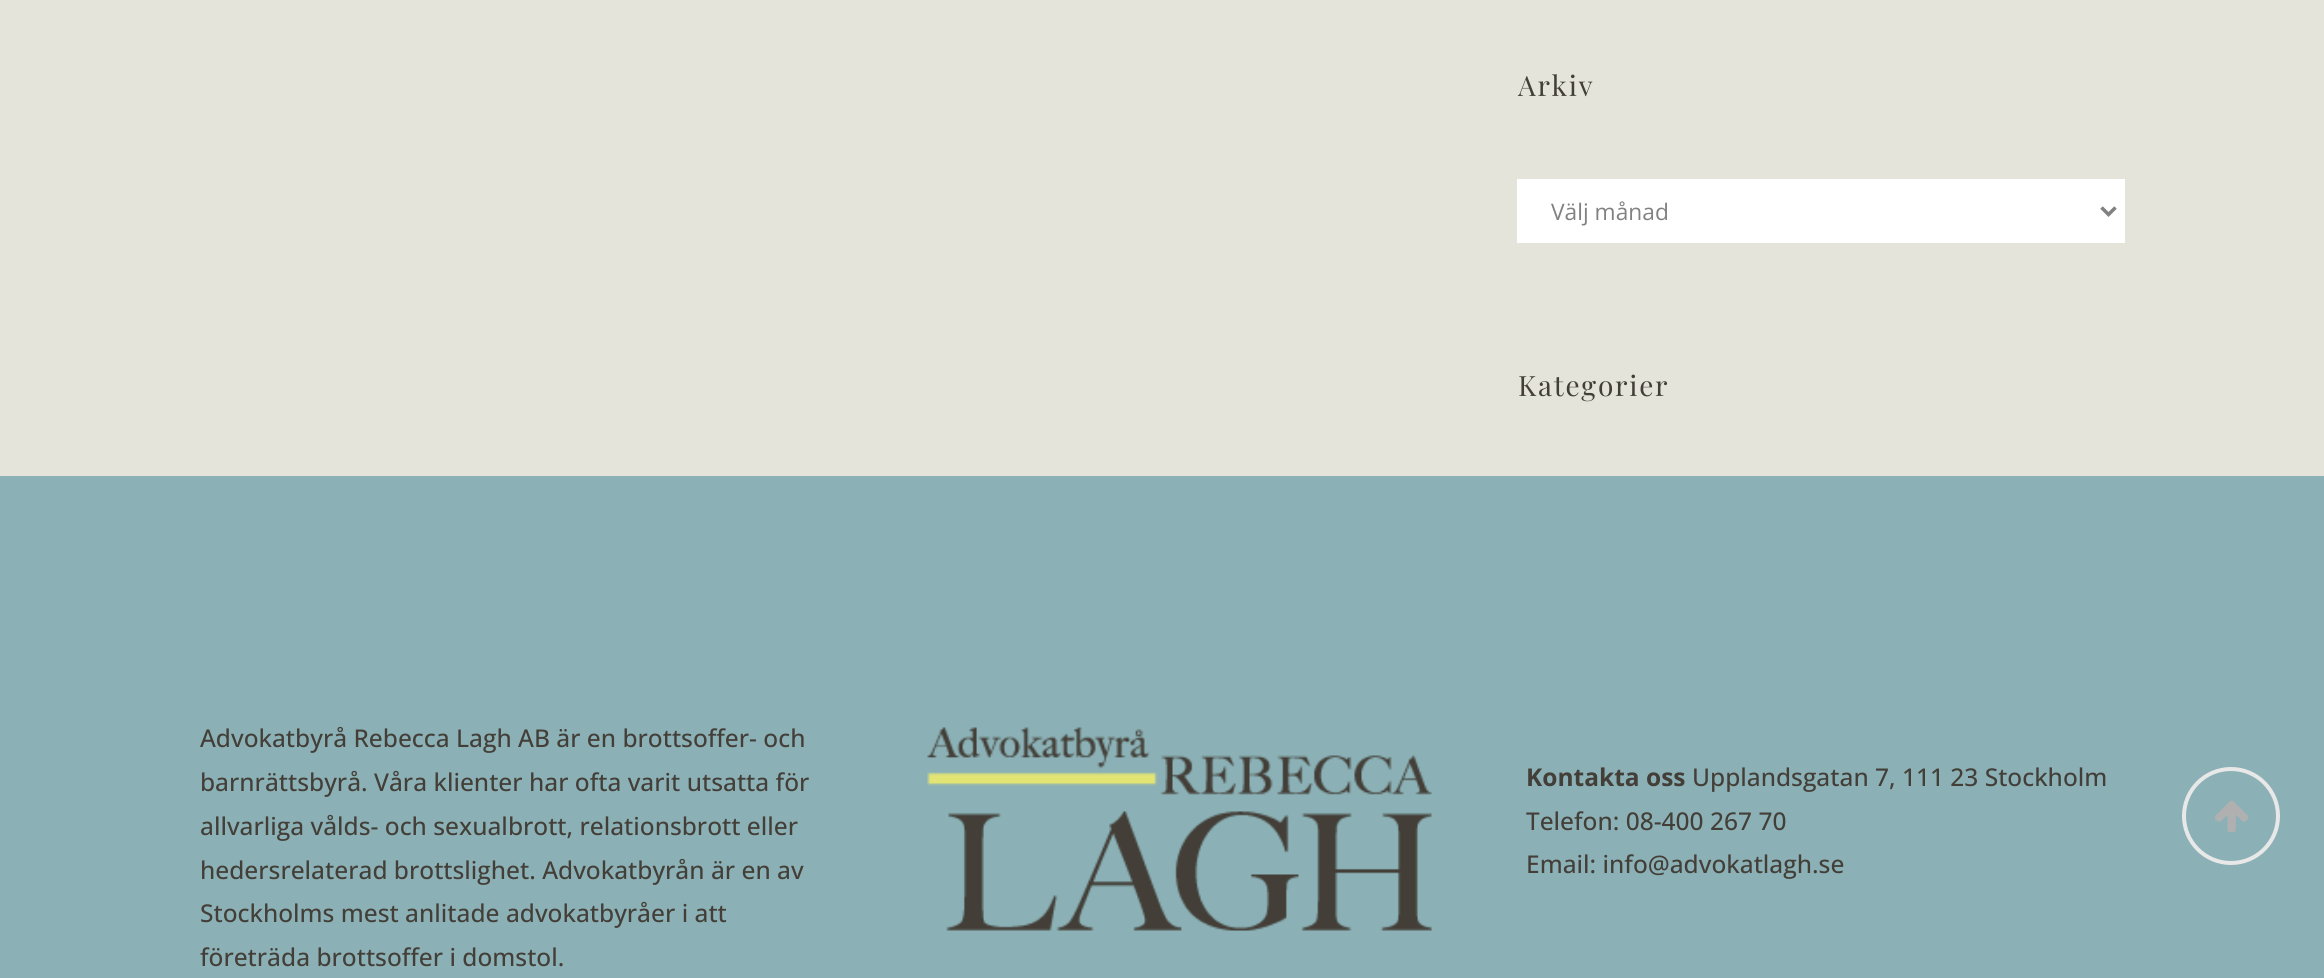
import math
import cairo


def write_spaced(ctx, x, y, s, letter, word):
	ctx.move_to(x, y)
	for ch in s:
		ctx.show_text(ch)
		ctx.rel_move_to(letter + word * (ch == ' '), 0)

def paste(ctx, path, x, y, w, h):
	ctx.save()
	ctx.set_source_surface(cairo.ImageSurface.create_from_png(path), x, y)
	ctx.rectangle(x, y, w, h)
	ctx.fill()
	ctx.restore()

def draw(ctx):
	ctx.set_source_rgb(0.898, 0.894, 0.855)
	ctx.paint()
	ctx.select_font_face('Playfair Display')
	ctx.set_font_size(28)
	ctx.set_source_rgb(0.263, 0.247, 0.22)
	write_spaced(ctx, 1518, 96, 'Arkiv', 1.75, 0)
	ctx.set_source_rgb(1, 1, 1)
	ctx.rectangle(1517, 179, 608, 64)
	ctx.fill()
	ctx.new_path()
	ctx.move_to(2101.5, 207.5)
	ctx.line_to(2108.5, 214.5)
	ctx.line_to(2115.5, 207.5)
	ctx.set_source_rgb(0.506, 0.506, 0.506)
	ctx.set_line_width(3.5)
	ctx.stroke()
	ctx.select_font_face('Open Sans')
	ctx.set_font_size(22.75)
	ctx.move_to(1551, 220)
	ctx.show_text('Välj månad')
	ctx.select_font_face('Playfair Display')
	ctx.set_font_size(28)
	ctx.set_source_rgb(0.263, 0.247, 0.22)
	write_spaced(ctx, 1518, 396, 'Kategorier', 1.75, 0)
	ctx.set_source_rgb(0.545, 0.694, 0.714)
	ctx.rectangle(0, 476, 2324, 502)
	ctx.fill()
	ctx.select_font_face('Open Sans Medium')
	ctx.set_font_size(24.5)
	ctx.set_source_rgb(0.263, 0.247, 0.22)
	for x, y, s in [
		(200, 747, 'Advokatbyrå Rebecca Lagh AB är en brottsoffer- och'),
		(200, 791, 'barnrättsbyrå. Våra klienter har ofta varit utsatta för'),
		(200, 835, 'allvarliga vålds- och sexualbrott, relationsbrott eller'),
		(200, 879, 'hedersrelaterad brottslighet. Advokatbyrån är en av'),
		(200, 922, 'Stockholms mest anlitade advokatbyråer i att'),
		(200, 966, 'företräda brottsoffer i domstol.'),
	]:
		ctx.move_to(x, y)
		ctx.show_text(s)
	paste(ctx, 'media/1.png', 927, 727, 505, 204)
	ctx.select_font_face('Open Sans', cairo.FONT_SLANT_NORMAL, cairo.FONT_WEIGHT_BOLD)
	ctx.move_to(1526, 786)
	ctx.show_text('Kontakta oss')
	ctx.select_font_face('Open Sans Medium')
	for x, y, s in [
		(1692, 786, 'Upplandsgatan 7, 111 23 Stockholm'),
		(1526, 830, 'Telefon: 08-400 267 70'),
		(1526, 873, 'Email: info@advokatlagh.se'),
	]:
		ctx.move_to(x, y)
		ctx.show_text(s)
	ctx.new_path()
	ctx.arc(2231, 816, 47, 0, 2 * math.pi)
	ctx.set_source_rgb(0.91, 0.91, 0.91)
	ctx.set_line_width(4)
	ctx.stroke()
	paste(ctx, 'media/2.png', 2215, 800, 34, 33)


surface = cairo.ImageSurface(cairo.FORMAT_RGB24, 2324, 978)
ctx = cairo.Context(surface)
options = cairo.FontOptions()
options.set_hint_metrics(cairo.HINT_METRICS_OFF)
options.set_hint_style(cairo.HINT_STYLE_NONE)
ctx.set_font_options(options)
ctx.set_miter_limit(4)
draw(ctx)
surface.write_to_png('image.png')
